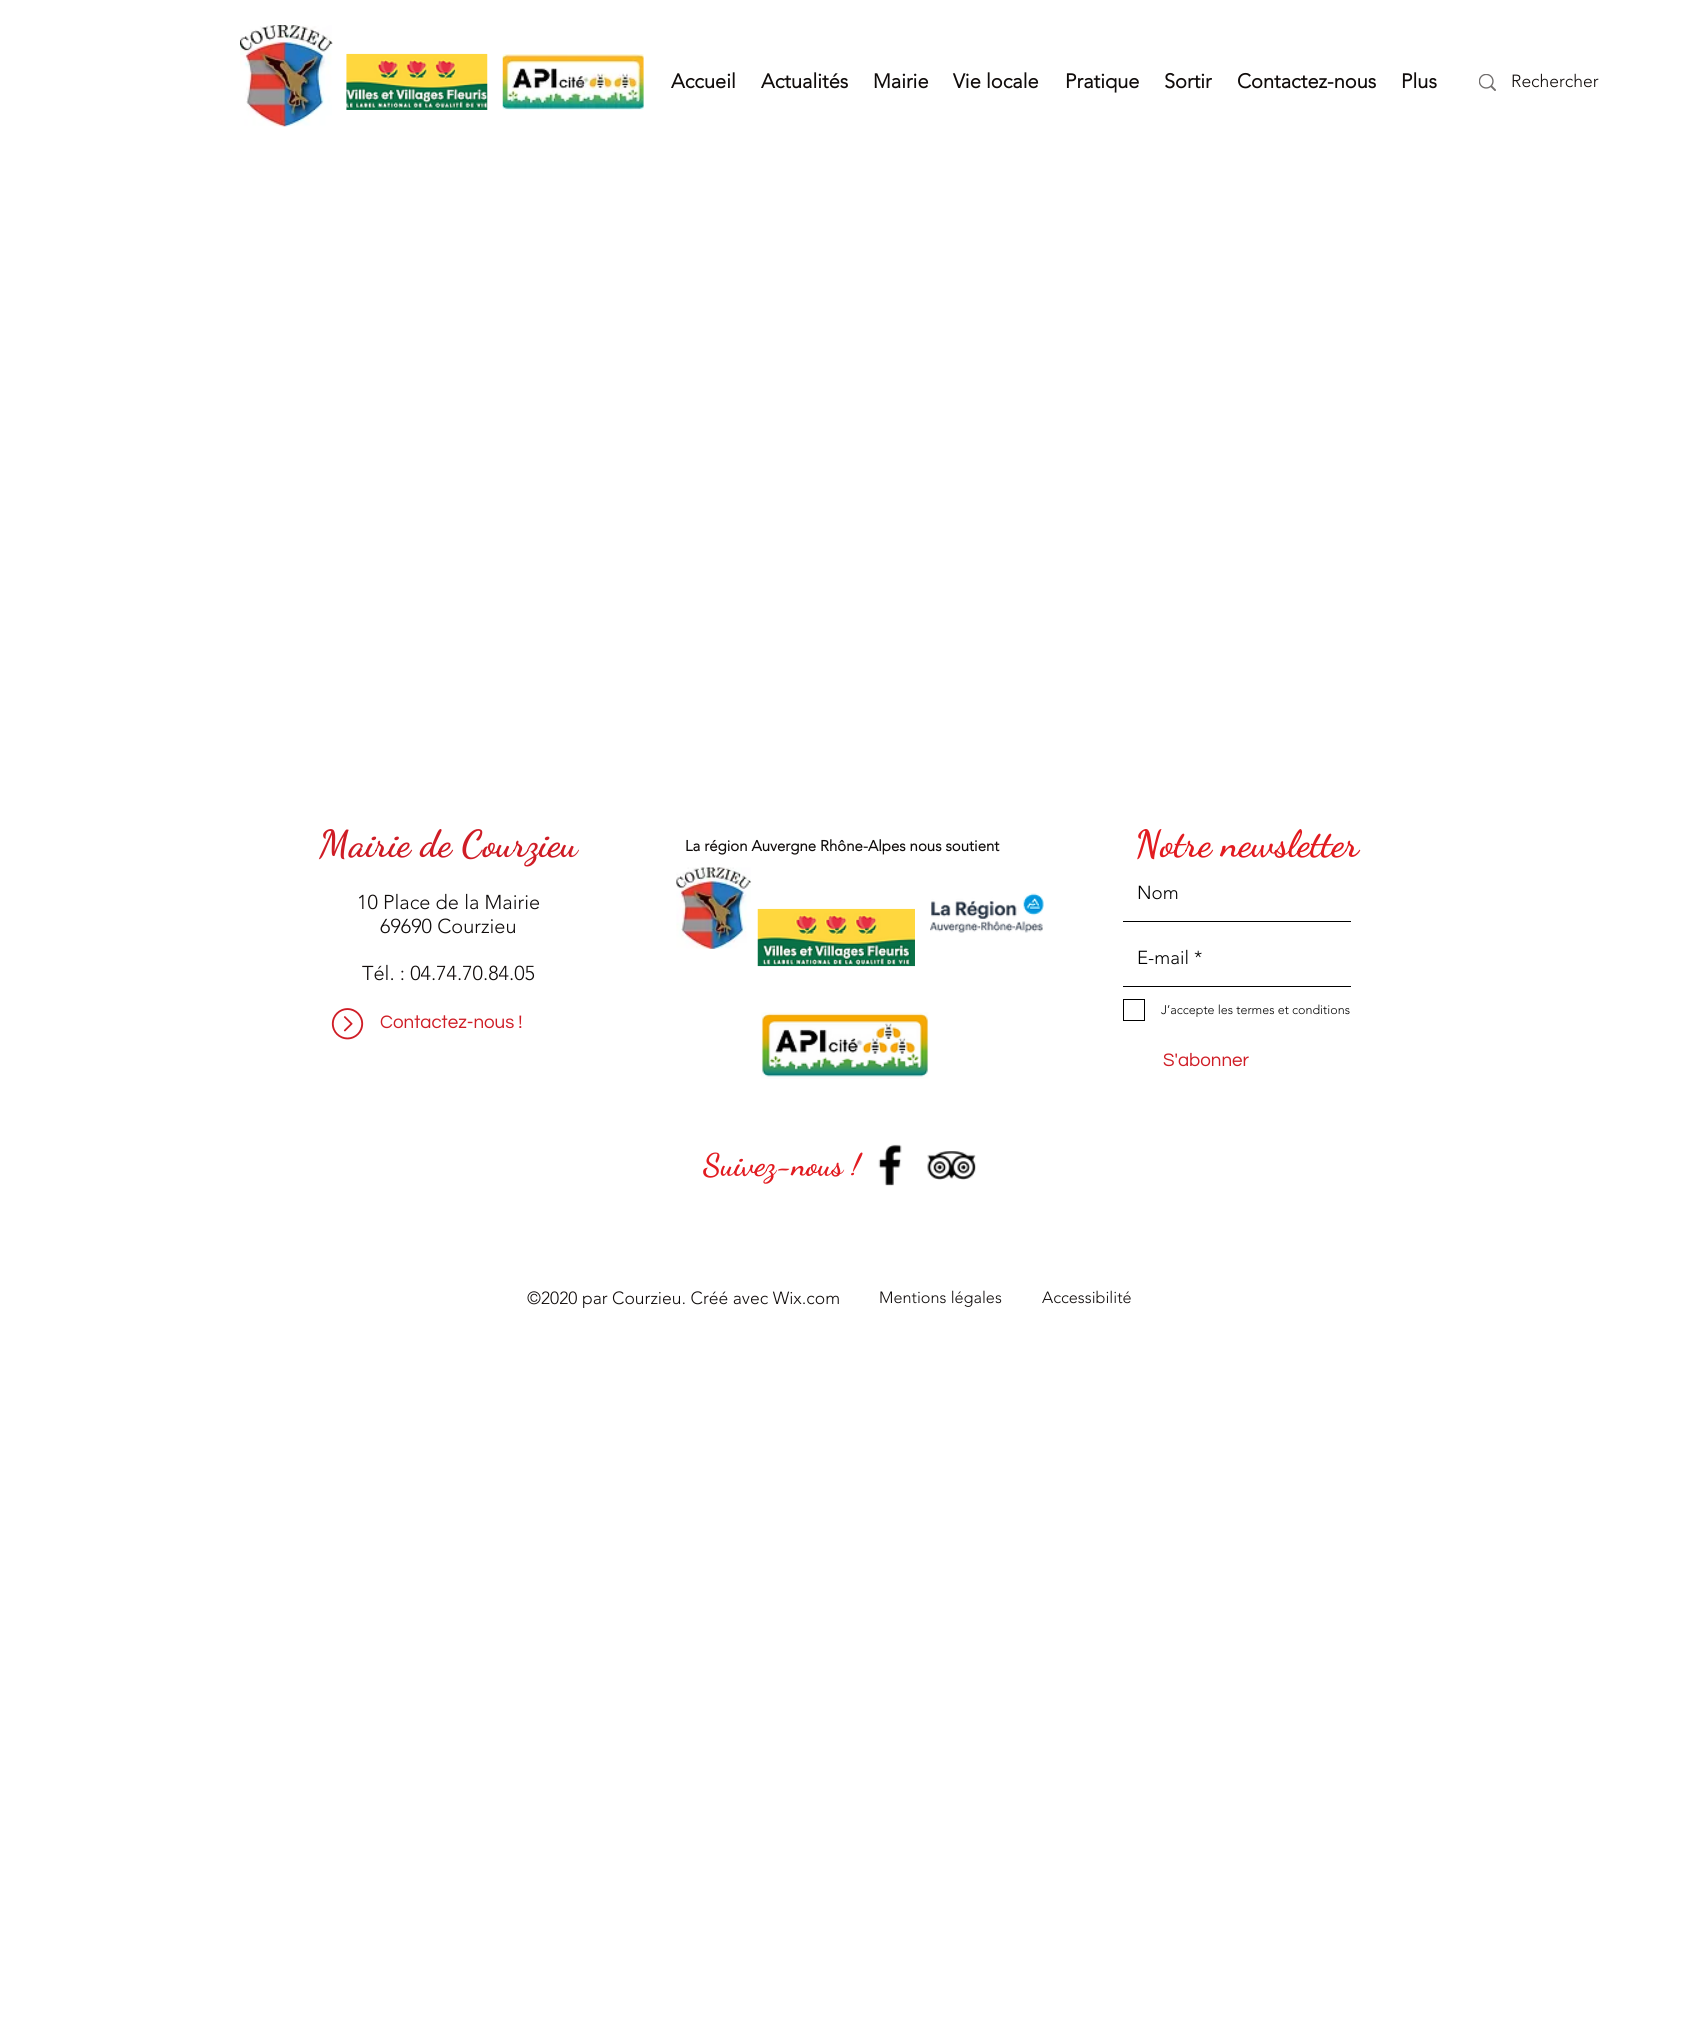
import math
import cairo


def paste(ctx, path, x, y, w, h):
	ctx.save()
	ctx.set_source_surface(cairo.ImageSurface.create_from_png(path), x, y)
	ctx.rectangle(x, y, w, h)
	ctx.fill()
	ctx.restore()

def draw(ctx):
	ctx.set_source_rgb(1, 1, 1)
	ctx.paint()
	paste(ctx, 'media/1.png', 240, 25, 93, 102)
	paste(ctx, 'media/2.png', 346, 53, 142, 57)
	paste(ctx, 'media/3.png', 502, 54, 142, 56)
	ctx.select_font_face('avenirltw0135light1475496', cairo.FONT_SLANT_NORMAL, cairo.FONT_WEIGHT_BOLD)
	ctx.set_font_size(20)
	ctx.set_source_rgb(0.063, 0.047, 0.043)
	for x, y, s in [
		(671, 88, 'Accueil'),
		(761, 88, 'Actualités'),
		(873, 88, 'Mairie'),
		(953, 88, 'Vie locale'),
		(1065, 88, 'Pratique'),
		(1164, 88, 'Sortir'),
		(1237, 88, 'Contactez-nous'),
		(1401, 88, 'Plus'),
	]:
		ctx.move_to(x, y)
		ctx.show_text(s)
	paste(ctx, 'media/4.png', 1479, 74, 17, 17)
	ctx.select_font_face('avenirltw0135light1475496 Light')
	ctx.set_font_size(17.5)
	ctx.move_to(1511, 87)
	ctx.show_text('Rechercher')
	ctx.select_font_face('Dancing Script', cairo.FONT_SLANT_NORMAL, cairo.FONT_WEIGHT_BOLD)
	ctx.set_font_size(37.5)
	ctx.set_source_rgb(0.812, 0.114, 0.149)
	ctx.move_to(319, 856)
	ctx.show_text('Mairie de Courzieu')
	ctx.select_font_face('avenirltw0135light1475496 Light')
	ctx.set_font_size(20)
	ctx.set_source_rgb(0.063, 0.047, 0.043)
	for x, y, s in [
		(357, 909, '10 Place de la Mairie'),
		(380, 933, '69690 Courzieu'),
		(362, 980, 'Tél. : 04.74.70.84.05'),
	]:
		ctx.move_to(x, y)
		ctx.show_text(s)
	paste(ctx, 'media/5.png', 331, 1008, 33, 32)
	ctx.select_font_face('Questrial')
	ctx.set_font_size(18.75)
	ctx.set_source_rgb(0.812, 0.114, 0.149)
	ctx.move_to(380, 1028)
	ctx.show_text('Contactez-nous !')
	ctx.select_font_face('avenirltw0135light1475496', cairo.FONT_SLANT_NORMAL, cairo.FONT_WEIGHT_BOLD)
	ctx.set_font_size(15)
	ctx.set_source_rgb(0.063, 0.047, 0.043)
	ctx.move_to(685, 851)
	ctx.show_text('La région Auvergne Rhône-Alpes nous soutient')
	paste(ctx, 'media/6.png', 676, 867, 76, 82)
	paste(ctx, 'media/7.png', 930, 893, 114, 40)
	ctx.select_font_face('Dancing Script', cairo.FONT_SLANT_NORMAL, cairo.FONT_WEIGHT_BOLD)
	ctx.set_font_size(37.5)
	ctx.set_source_rgb(0.886, 0.11, 0.129)
	ctx.move_to(1135, 856)
	ctx.show_text('Notre newsletter')
	paste(ctx, 'media/8.png', 757, 908, 158, 59)
	ctx.set_source_rgb(0, 0, 0)
	ctx.rectangle(1123, 921, 228, 1)
	ctx.fill()
	ctx.select_font_face('avenirltw0135light1475496 Light')
	ctx.set_font_size(18.75)
	ctx.move_to(1137, 899)
	ctx.show_text('Nom')
	ctx.rectangle(1123, 986, 228, 1)
	ctx.fill()
	ctx.move_to(1137, 964)
	ctx.show_text('E-mail *')
	ctx.rectangle(1123.5, 999.5, 21, 21)
	ctx.set_line_width(1)
	ctx.stroke()
	ctx.set_font_size(12.5)
	ctx.move_to(1161, 1014)
	ctx.show_text('J’accepte les termes et conditions')
	ctx.select_font_face('Questrial')
	ctx.set_font_size(18.75)
	ctx.set_source_rgb(0.812, 0.114, 0.149)
	ctx.move_to(1163, 1066)
	ctx.show_text('S\'abonner')
	paste(ctx, 'media/9.png', 761, 1012, 168, 67)
	ctx.select_font_face('Dancing Script', cairo.FONT_SLANT_NORMAL, cairo.FONT_WEIGHT_BOLD)
	ctx.set_font_size(31.25)
	ctx.set_source_rgb(0.886, 0.11, 0.129)
	ctx.move_to(703, 1175)
	ctx.show_text('Suivez-nous !')
	paste(ctx, 'media/10.png', 878, 1144, 24, 42)
	paste(ctx, 'media/11.png', 927, 1151, 49, 29)
	ctx.select_font_face('avenirltw0135light1475496 Light')
	ctx.set_font_size(17.5)
	ctx.set_source_rgb(0.063, 0.047, 0.043)
	ctx.move_to(527, 1304)
	ctx.show_text('©2020 par Courzieu. Créé avec Wix.com')
	ctx.set_font_size(16.25)
	ctx.move_to(879, 1303)
	ctx.show_text('Mentions légales')
	ctx.move_to(1042, 1303)
	ctx.show_text('Accessibilité')


surface = cairo.ImageSurface(cairo.FORMAT_RGB24, 1683, 2026)
ctx = cairo.Context(surface)
options = cairo.FontOptions()
options.set_hint_metrics(cairo.HINT_METRICS_OFF)
options.set_hint_style(cairo.HINT_STYLE_NONE)
ctx.set_font_options(options)
ctx.set_miter_limit(4)
draw(ctx)
surface.write_to_png('image.png')
